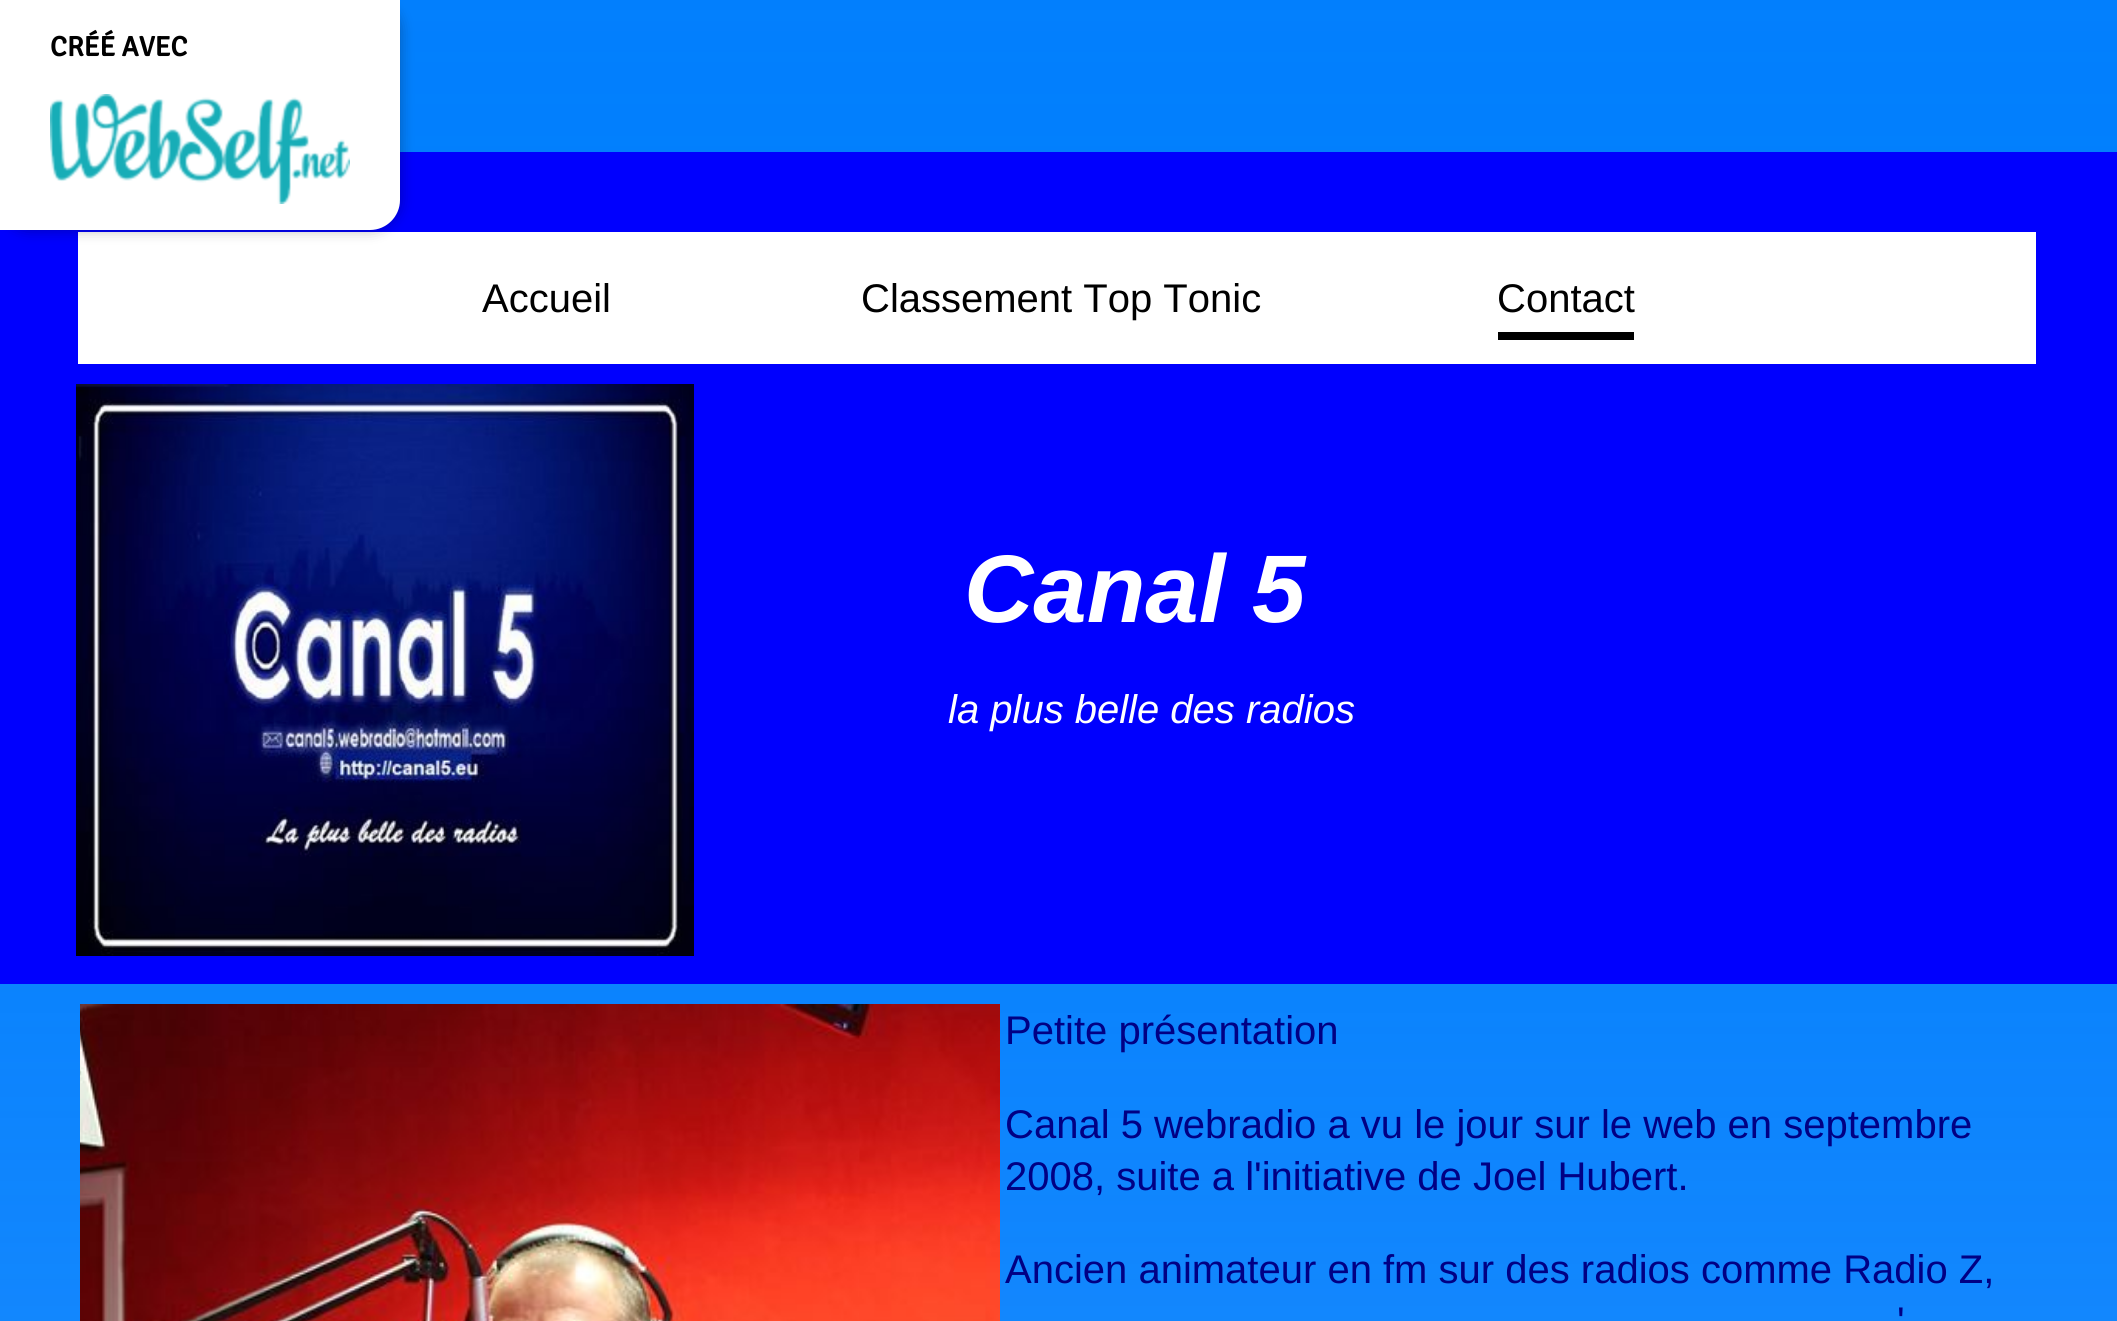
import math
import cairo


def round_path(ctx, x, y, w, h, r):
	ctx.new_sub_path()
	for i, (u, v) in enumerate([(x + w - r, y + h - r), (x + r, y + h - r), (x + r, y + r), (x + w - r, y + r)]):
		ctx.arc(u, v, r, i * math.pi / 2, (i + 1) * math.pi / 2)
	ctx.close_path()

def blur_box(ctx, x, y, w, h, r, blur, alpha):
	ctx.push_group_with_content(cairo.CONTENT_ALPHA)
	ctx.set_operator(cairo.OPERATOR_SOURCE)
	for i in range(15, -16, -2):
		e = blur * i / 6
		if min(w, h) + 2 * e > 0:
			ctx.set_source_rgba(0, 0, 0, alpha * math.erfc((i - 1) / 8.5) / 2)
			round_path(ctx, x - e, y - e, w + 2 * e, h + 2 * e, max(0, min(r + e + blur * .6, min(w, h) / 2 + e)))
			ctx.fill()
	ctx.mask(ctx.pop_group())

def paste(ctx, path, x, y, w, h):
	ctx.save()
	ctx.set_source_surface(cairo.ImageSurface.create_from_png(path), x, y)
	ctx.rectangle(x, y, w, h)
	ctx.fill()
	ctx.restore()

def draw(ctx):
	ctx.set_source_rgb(1, 1, 1)
	ctx.paint()
	gradient = cairo.LinearGradient(1059, 0, 1059, 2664)
	gradient.add_color_stop_rgba(0, 0.008, 0.498, 0.992, 1)
	gradient.add_color_stop_rgba(1, 0.506, 0.749, 0.996, 1)
	ctx.set_source(gradient)
	ctx.rectangle(0, 31, 2117, 1290)
	ctx.fill()
	gradient = cairo.LinearGradient(1059, 0, 1059, 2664)
	gradient.add_color_stop_rgba(0, 0.008, 0.498, 0.992, 1)
	gradient.add_color_stop_rgba(1, 0.008, 0.498, 0.992, 0.5)
	ctx.set_source(gradient)
	ctx.rectangle(0, 0, 2117, 1321)
	ctx.fill()
	ctx.set_source_rgb(0, 0, 0.996)
	ctx.rectangle(0, 152, 2117, 832)
	ctx.fill()
	ctx.set_source_rgb(1, 1, 1)
	ctx.rectangle(78, 232, 1958, 132)
	ctx.fill()
	ctx.set_source_rgb(0, 0, 0)
	blur_box(ctx, 0, 0, 400, 230, 30, 7, 0.3)
	ctx.set_source_rgb(1, 1, 1)
	ctx.new_path()
	ctx.move_to(0, 0)
	ctx.line_to(400, 0)
	ctx.line_to(400, 200)
	ctx.curve_to(400, 216.5, 386.5, 230, 370, 230)
	ctx.line_to(0, 230)
	ctx.close_path()
	ctx.fill()
	ctx.select_font_face('Signika', cairo.FONT_SLANT_NORMAL, cairo.FONT_WEIGHT_BOLD)
	ctx.set_font_size(28)
	ctx.set_source_rgb(0, 0, 0)
	ctx.move_to(50, 56)
	ctx.show_text('CRÉÉ AVEC')
	paste(ctx, 'media/1.png', 50, 94, 300, 110)
	ctx.select_font_face('Liberation Sans')
	ctx.set_font_size(40)
	for x, y, s in [
		(482, 312, 'Accueil'),
		(861, 312, 'Classement Top Tonic'),
		(1497, 312, 'Contact'),
	]:
		ctx.move_to(x, y)
		ctx.show_text(s)
	ctx.rectangle(1498, 332, 136, 8)
	ctx.fill()
	paste(ctx, 'media/2.png', 76, 384, 618, 572)
	ctx.select_font_face('Liberation Sans', cairo.FONT_SLANT_ITALIC, cairo.FONT_WEIGHT_BOLD)
	ctx.set_font_size(96)
	ctx.set_source_rgb(1, 1, 1)
	ctx.move_to(964, 622)
	ctx.show_text('Canal 5')
	ctx.select_font_face('Liberation Sans', cairo.FONT_SLANT_ITALIC)
	ctx.set_font_size(40)
	ctx.move_to(948, 723)
	ctx.show_text('la plus belle des radios')
	paste(ctx, 'media/3.png', 80, 1004, 920, 317)
	ctx.select_font_face('Liberation Sans')
	ctx.set_source_rgb(0.004, 0, 0.518)
	for x, y, s in [
		(1005, 1044, 'Petite présentation'),
		(1005, 1138, 'Canal 5 webradio a vu le jour sur le web en septembre'),
		(1005, 1190, '2008, suite a l\'initiative de Joel Hubert.'),
		(1005, 1283, 'Ancien animateur en fm sur des radios comme Radio Z,'),
		(1897, 1335, '\''),
	]:
		ctx.move_to(x, y)
		ctx.show_text(s)


surface = cairo.ImageSurface(cairo.FORMAT_RGB24, 2117, 1321)
ctx = cairo.Context(surface)
options = cairo.FontOptions()
options.set_hint_metrics(cairo.HINT_METRICS_OFF)
options.set_hint_style(cairo.HINT_STYLE_NONE)
ctx.set_font_options(options)
ctx.set_miter_limit(4)
draw(ctx)
surface.write_to_png('image.png')
